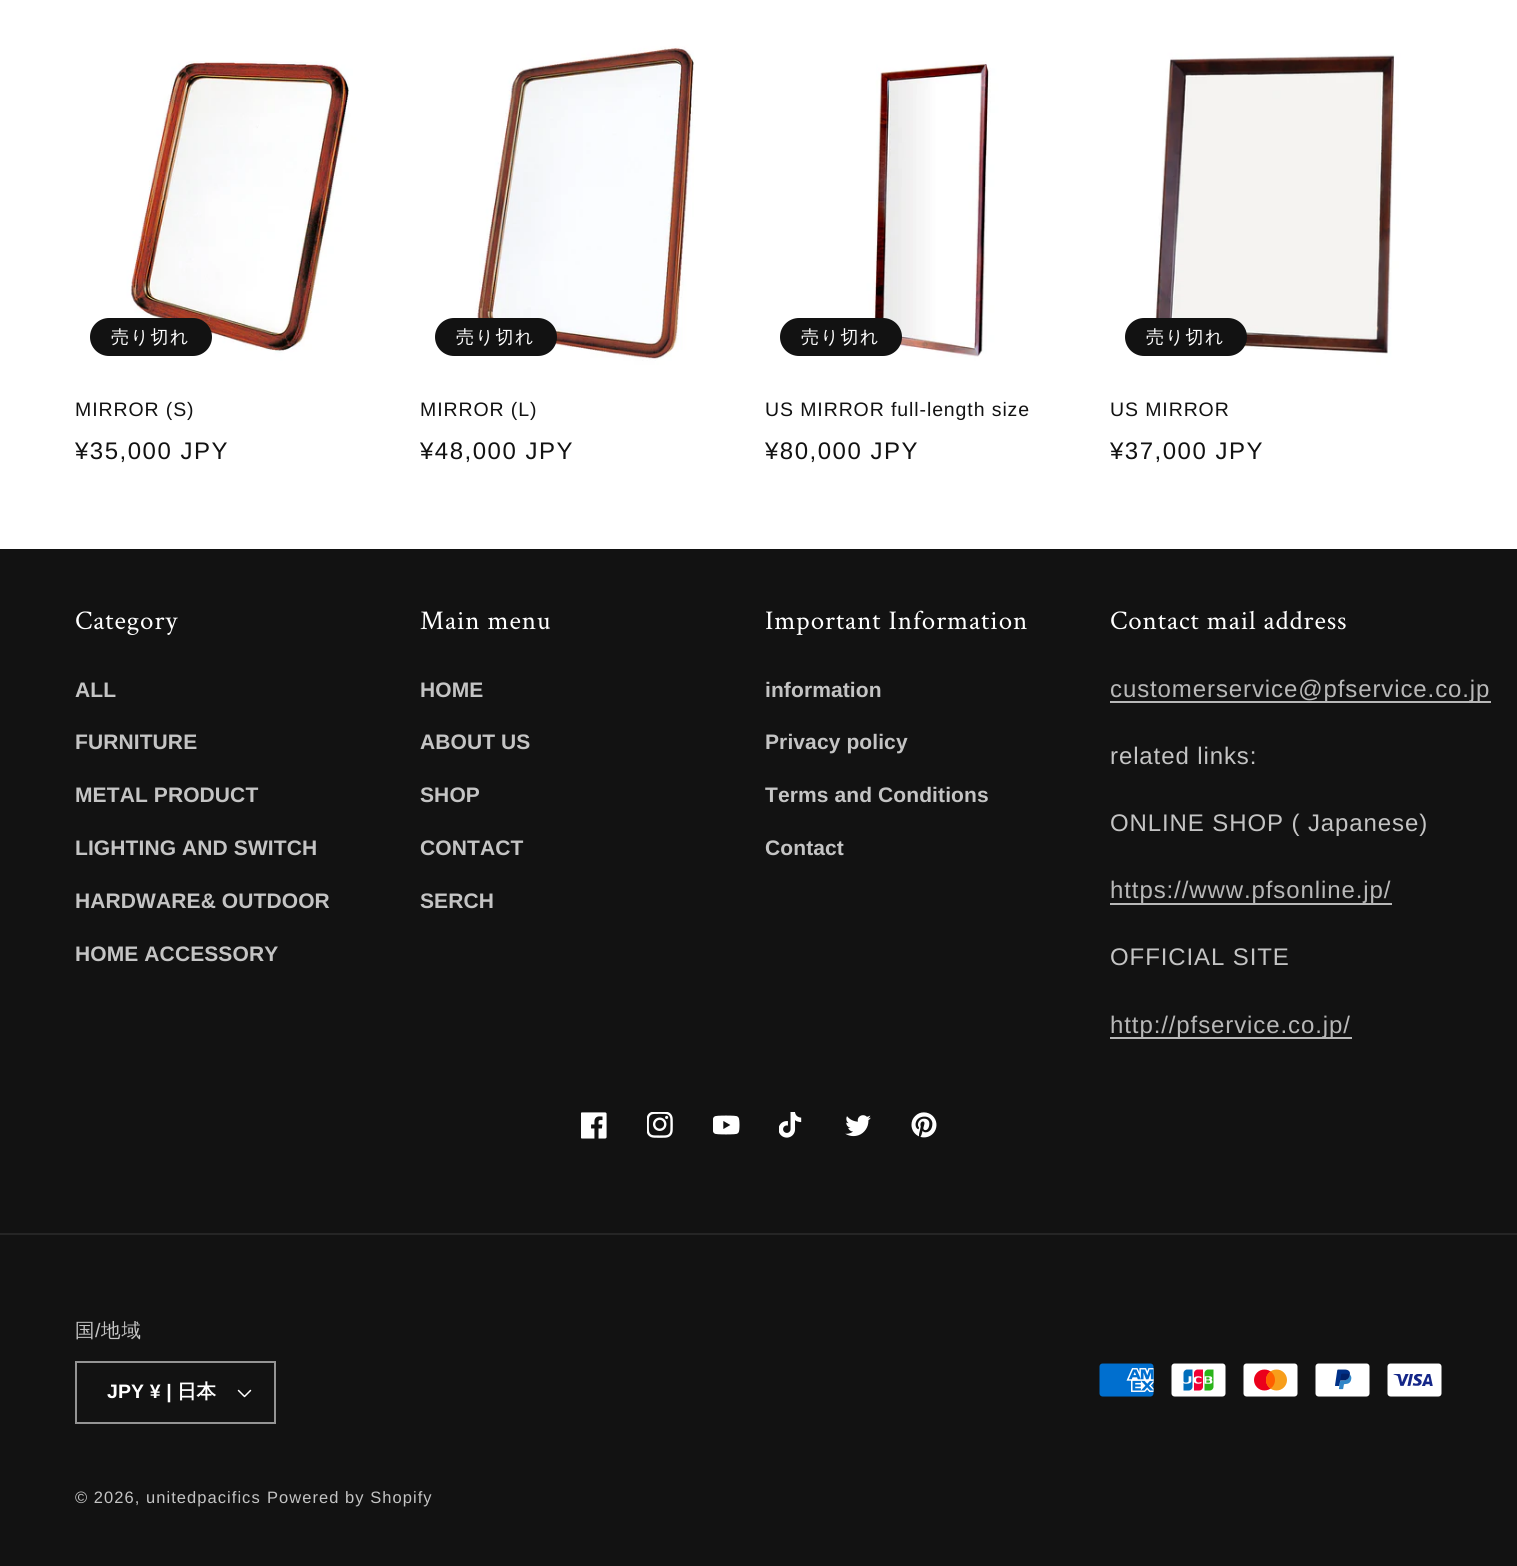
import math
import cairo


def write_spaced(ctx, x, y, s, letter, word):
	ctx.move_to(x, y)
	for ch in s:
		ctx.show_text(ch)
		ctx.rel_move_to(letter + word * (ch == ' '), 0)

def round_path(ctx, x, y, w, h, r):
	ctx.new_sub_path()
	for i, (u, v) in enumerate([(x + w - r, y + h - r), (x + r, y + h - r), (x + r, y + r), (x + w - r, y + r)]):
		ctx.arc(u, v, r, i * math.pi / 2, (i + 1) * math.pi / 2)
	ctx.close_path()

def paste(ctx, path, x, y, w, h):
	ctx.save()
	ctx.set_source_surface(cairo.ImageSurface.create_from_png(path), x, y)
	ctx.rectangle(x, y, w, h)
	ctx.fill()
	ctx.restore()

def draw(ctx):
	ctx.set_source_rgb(1, 1, 1)
	ctx.paint()
	paste(ctx, 'media/1.png', 75, 39, 333, 333)
	ctx.set_source_rgb(0.071, 0.071, 0.071)
	round_path(ctx, 91, 319, 120, 36, 18)
	ctx.fill_preserve()
	ctx.stroke()
	ctx.select_font_face('WenQuanYi Zen Hei Medium')
	ctx.set_font_size(18)
	ctx.set_source_rgb(1, 1, 1)
	write_spaced(ctx, 111, 343, '売り切れ', 1.5, 0)
	ctx.select_font_face('Liberation Sans')
	ctx.set_font_size(19.5)
	ctx.set_source_rgb(0.071, 0.071, 0.071)
	write_spaced(ctx, 75, 416, 'MIRROR (S)', 0.9, 0)
	ctx.set_font_size(24)
	write_spaced(ctx, 75, 459, '¥35,000 JPY', 1.5, 0)
	paste(ctx, 'media/2.png', 420, 39, 333, 333)
	round_path(ctx, 436, 319, 120, 36, 18)
	ctx.fill_preserve()
	ctx.stroke()
	ctx.select_font_face('WenQuanYi Zen Hei Medium')
	ctx.set_font_size(18)
	ctx.set_source_rgb(1, 1, 1)
	write_spaced(ctx, 456, 343, '売り切れ', 1.5, 0)
	ctx.select_font_face('Liberation Sans')
	ctx.set_font_size(19.5)
	ctx.set_source_rgb(0.071, 0.071, 0.071)
	write_spaced(ctx, 420, 416, 'MIRROR (L)', 0.9, 0)
	ctx.set_font_size(24)
	write_spaced(ctx, 420, 459, '¥48,000 JPY', 1.5, 0)
	paste(ctx, 'media/3.png', 765, 39, 333, 333)
	round_path(ctx, 781, 319, 120, 36, 18)
	ctx.fill_preserve()
	ctx.stroke()
	ctx.select_font_face('WenQuanYi Zen Hei Medium')
	ctx.set_font_size(18)
	ctx.set_source_rgb(1, 1, 1)
	write_spaced(ctx, 801, 343, '売り切れ', 1.5, 0)
	ctx.select_font_face('Liberation Sans')
	ctx.set_font_size(19.5)
	ctx.set_source_rgb(0.071, 0.071, 0.071)
	write_spaced(ctx, 765, 416, 'US MIRROR full-length size', 0.9, 0)
	ctx.set_font_size(24)
	write_spaced(ctx, 765, 459, '¥80,000 JPY', 1.5, 0)
	paste(ctx, 'media/4.png', 1110, 39, 333, 333)
	round_path(ctx, 1126, 319, 120, 36, 18)
	ctx.fill_preserve()
	ctx.stroke()
	ctx.select_font_face('WenQuanYi Zen Hei Medium')
	ctx.set_font_size(18)
	ctx.set_source_rgb(1, 1, 1)
	write_spaced(ctx, 1146, 343, '売り切れ', 1.5, 0)
	ctx.select_font_face('Liberation Sans')
	ctx.set_font_size(19.5)
	ctx.set_source_rgb(0.071, 0.071, 0.071)
	write_spaced(ctx, 1110, 416, 'US MIRROR', 0.9, 0)
	ctx.set_font_size(24)
	write_spaced(ctx, 1110, 459, '¥37,000 JPY', 1.5, 0)
	ctx.rectangle(0, 549, 1517, 1017)
	ctx.fill()
	ctx.select_font_face('Crimson Text')
	ctx.set_font_size(27)
	ctx.set_source_rgb(1, 1, 1)
	write_spaced(ctx, 75, 629, 'Category', 0.9, 0)
	ctx.select_font_face('Liberation Sans', cairo.FONT_SLANT_NORMAL, cairo.FONT_WEIGHT_BOLD)
	ctx.set_font_size(21)
	ctx.set_source_rgb(0.769, 0.769, 0.769)
	for x, y, s in [
		(75, 697, 'ALL'),
		(75, 749, 'FURNITURE'),
		(75, 802, 'METAL PRODUCT'),
		(75, 855, 'LIGHTING AND SWITCH'),
		(75, 908, 'HARDWARE& OUTDOOR'),
		(75, 961, 'HOME ACCESSORY'),
	]:
		write_spaced(ctx, x, y, s, 0.1, 0)
	ctx.select_font_face('Crimson Text')
	ctx.set_font_size(27)
	ctx.set_source_rgb(1, 1, 1)
	write_spaced(ctx, 420, 629, 'Main menu', 0.9, 0)
	ctx.select_font_face('Liberation Sans', cairo.FONT_SLANT_NORMAL, cairo.FONT_WEIGHT_BOLD)
	ctx.set_font_size(21)
	ctx.set_source_rgb(0.769, 0.769, 0.769)
	for x, y, s in [
		(420, 697, 'HOME'),
		(420, 749, 'ABOUT US'),
		(420, 802, 'SHOP'),
		(420, 855, 'CONTACT'),
		(420, 908, 'SERCH'),
	]:
		write_spaced(ctx, x, y, s, 0.1, 0)
	ctx.select_font_face('Crimson Text')
	ctx.set_font_size(27)
	ctx.set_source_rgb(1, 1, 1)
	write_spaced(ctx, 765, 629, 'Important Information', 0.9, 0)
	ctx.select_font_face('Liberation Sans', cairo.FONT_SLANT_NORMAL, cairo.FONT_WEIGHT_BOLD)
	ctx.set_font_size(21)
	ctx.set_source_rgb(0.769, 0.769, 0.769)
	for x, y, s in [
		(765, 697, 'information'),
		(765, 749, 'Privacy policy'),
		(765, 802, 'Terms and Conditions'),
		(765, 855, 'Contact'),
	]:
		write_spaced(ctx, x, y, s, 0.1, 0)
	ctx.select_font_face('Crimson Text')
	ctx.set_font_size(27)
	ctx.set_source_rgb(1, 1, 1)
	write_spaced(ctx, 1110, 629, 'Contact mail address', 0.9, 0)
	ctx.set_source_rgb(0.722, 0.722, 0.722)
	ctx.rectangle(1110, 701, 381, 2)
	ctx.fill()
	ctx.select_font_face('Liberation Sans')
	ctx.set_font_size(24)
	write_spaced(ctx, 1110, 697, 'customerservice@pfservice.co.jp', 0.9, 0)
	ctx.set_source_rgb(0.769, 0.769, 0.769)
	write_spaced(ctx, 1110, 764, 'related links:', 0.9, 0)
	write_spaced(ctx, 1110, 831, 'ONLINE SHOP ( Japanese)', 0.9, 0)
	ctx.set_source_rgb(0.722, 0.722, 0.722)
	write_spaced(ctx, 1110, 898, 'https://www.pfsonline.jp/', 0.9, 0)
	ctx.rectangle(1110, 903, 282, 2)
	ctx.fill()
	ctx.set_source_rgb(0.769, 0.769, 0.769)
	write_spaced(ctx, 1110, 965, 'OFFICIAL SITE', 0.9, 0)
	ctx.set_source_rgb(0.722, 0.722, 0.722)
	ctx.rectangle(1110, 1037, 242, 2)
	ctx.fill()
	write_spaced(ctx, 1110, 1033, 'http://pfservice.co.jp/', 0.9, 0)
	paste(ctx, 'media/5.png', 581, 1112, 26, 27)
	paste(ctx, 'media/6.png', 647, 1112, 26, 26)
	paste(ctx, 'media/7.png', 713, 1115, 27, 20)
	paste(ctx, 'media/8.png', 779, 1112, 23, 26)
	paste(ctx, 'media/9.png', 845, 1115, 26, 22)
	paste(ctx, 'media/10.png', 911, 1112, 26, 26)
	ctx.set_source_rgb(0.145, 0.145, 0.145)
	ctx.rectangle(0, 1233, 1517, 2)
	ctx.fill()
	ctx.select_font_face('WenQuanYi Zen Hei Medium')
	ctx.set_font_size(19.5)
	ctx.set_source_rgb(0.769, 0.769, 0.769)
	write_spaced(ctx, 75, 1337, '国', 1, 0)
	ctx.select_font_face('Liberation Sans')
	write_spaced(ctx, 95, 1337, '/', 1, 0)
	ctx.select_font_face('WenQuanYi Zen Hei Medium')
	write_spaced(ctx, 101, 1337, '地域', 1, 0)
	paste(ctx, 'media/11.png', 237, 1389, 15, 9)
	ctx.rectangle(76, 1362, 199, 61)
	ctx.set_source_rgb(0.58, 0.58, 0.58)
	ctx.stroke()
	ctx.select_font_face('Liberation Sans', cairo.FONT_SLANT_NORMAL, cairo.FONT_WEIGHT_BOLD)
	ctx.set_source_rgb(1, 1, 1)
	write_spaced(ctx, 107, 1398, 'JPY ¥ |', 0.1, 0)
	ctx.select_font_face('WenQuanYi Zen Hei', cairo.FONT_SLANT_NORMAL, cairo.FONT_WEIGHT_BOLD)
	write_spaced(ctx, 177, 1398, '日本', 0.1, 0)
	paste(ctx, 'media/12.png', 1099, 1363, 55, 34)
	paste(ctx, 'media/13.png', 1171, 1363, 55, 34)
	paste(ctx, 'media/14.png', 1243, 1363, 55, 34)
	paste(ctx, 'media/15.png', 1315, 1363, 55, 34)
	paste(ctx, 'media/16.png', 1387, 1363, 55, 34)
	ctx.select_font_face('Liberation Sans')
	ctx.set_font_size(16.5)
	ctx.set_source_rgb(0.769, 0.769, 0.769)
	write_spaced(ctx, 75, 1503, '© 2026, unitedpacifics', 1.05, 0)
	write_spaced(ctx, 267, 1503, 'Powered by Shopify', 1.05, 0)


surface = cairo.ImageSurface(cairo.FORMAT_RGB24, 1517, 1566)
ctx = cairo.Context(surface)
options = cairo.FontOptions()
options.set_hint_metrics(cairo.HINT_METRICS_OFF)
options.set_hint_style(cairo.HINT_STYLE_NONE)
ctx.set_font_options(options)
ctx.set_miter_limit(4)
draw(ctx)
surface.write_to_png('image.png')
